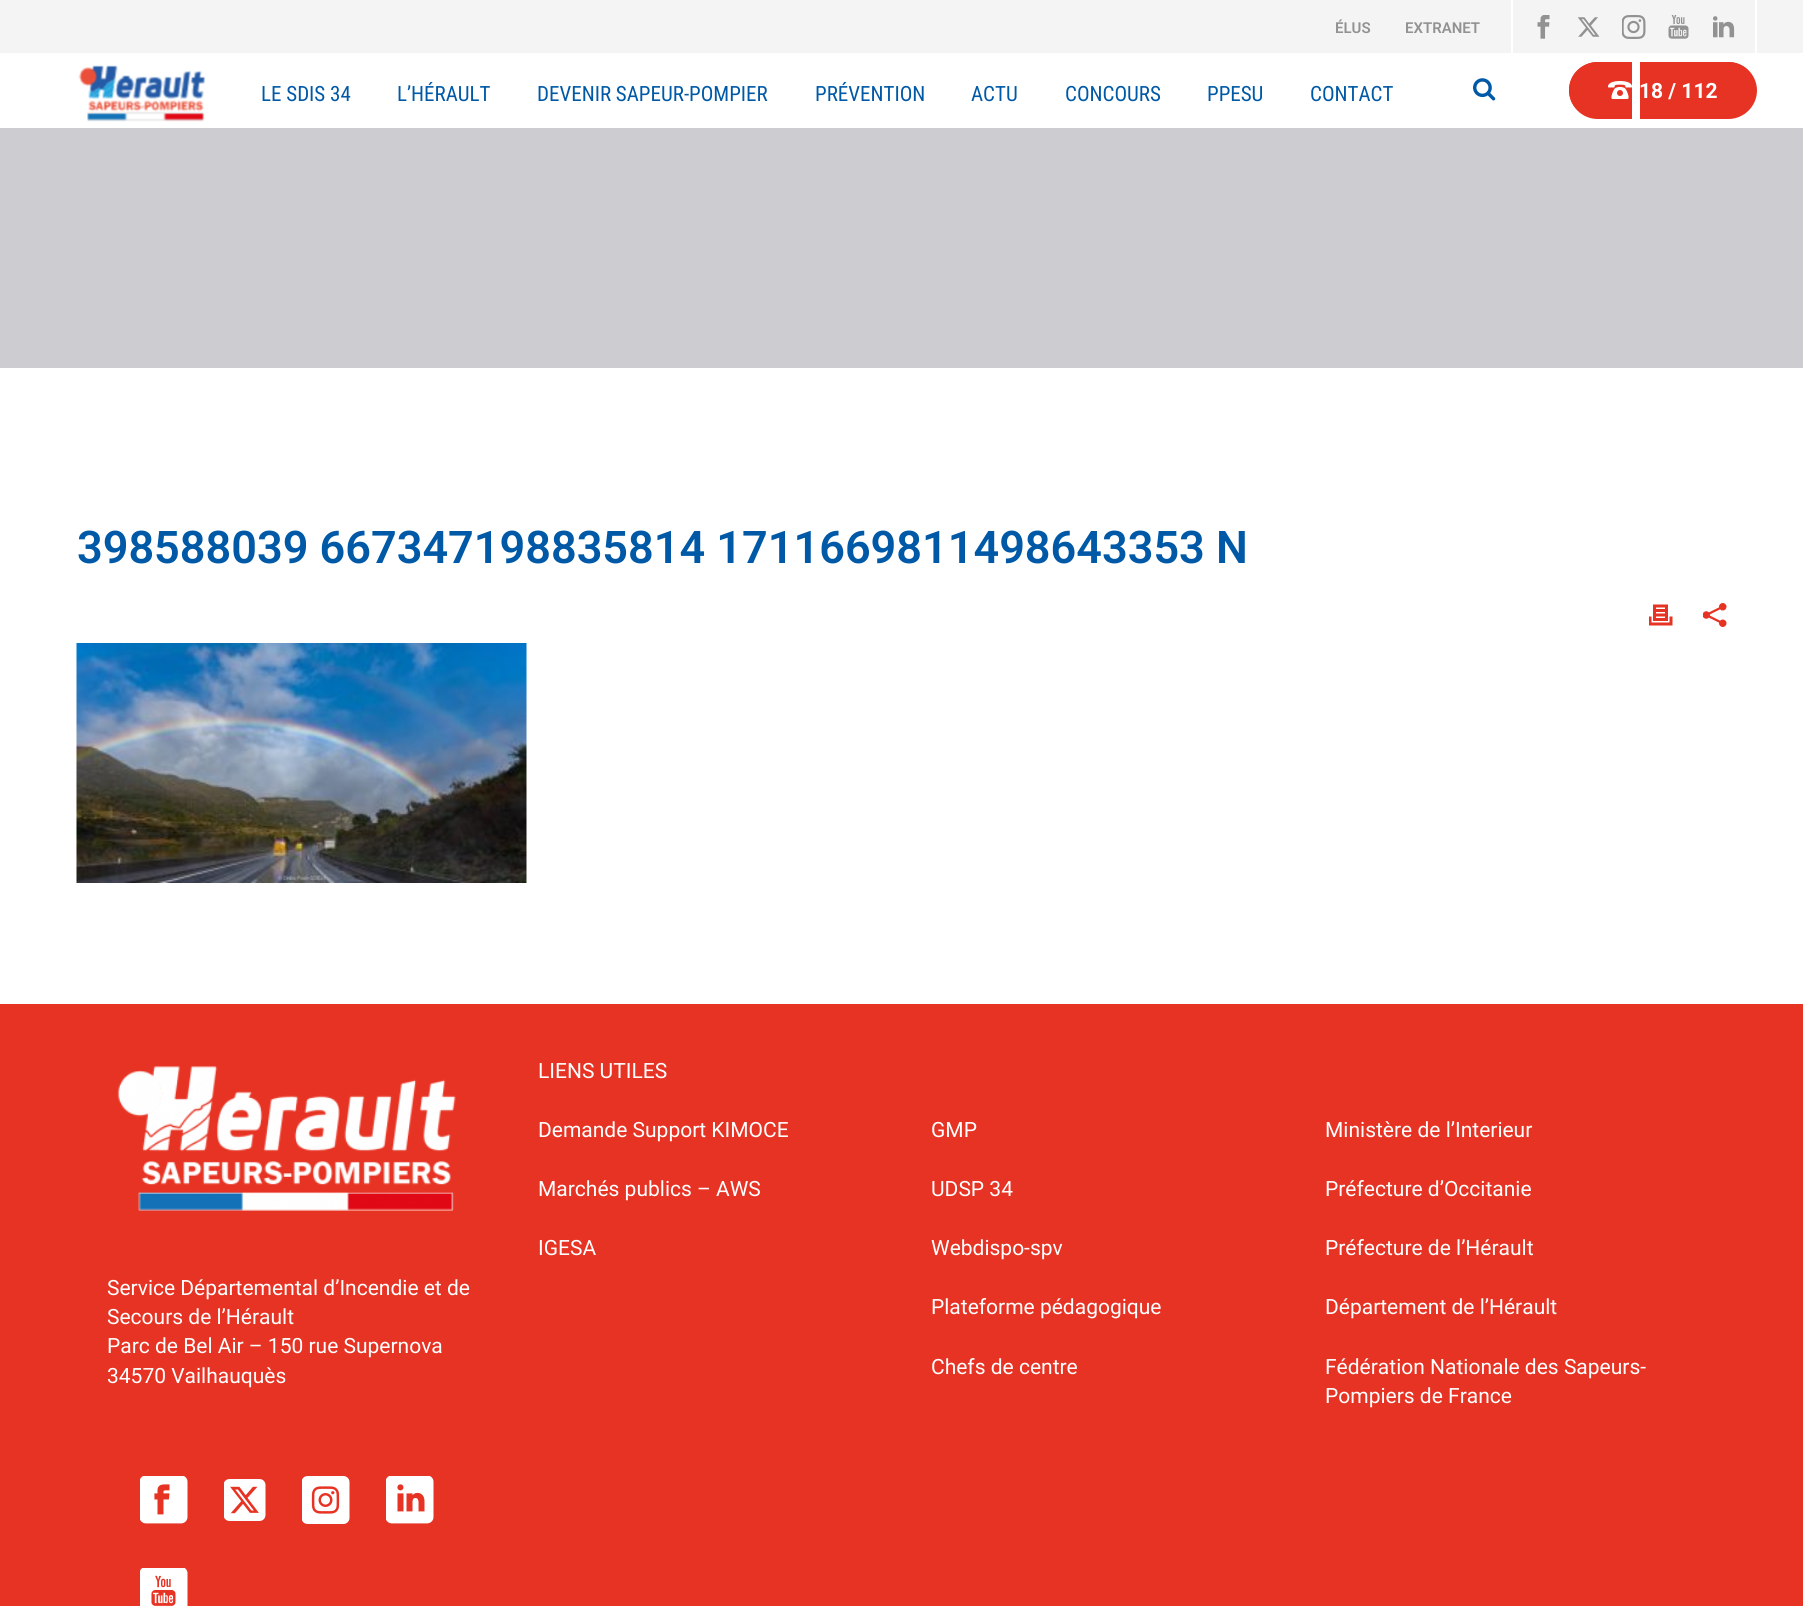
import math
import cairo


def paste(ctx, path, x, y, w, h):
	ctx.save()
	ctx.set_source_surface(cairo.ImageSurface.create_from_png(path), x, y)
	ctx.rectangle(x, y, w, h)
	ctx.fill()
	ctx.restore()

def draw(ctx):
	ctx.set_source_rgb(1, 1, 1)
	ctx.paint()
	ctx.set_source_rgb(0.957, 0.957, 0.957)
	ctx.rectangle(0, 0, 1803, 53)
	ctx.fill()
	ctx.select_font_face('Roboto SemiBold')
	ctx.set_font_size(15)
	ctx.set_source_rgb(0.573, 0.573, 0.573)
	ctx.move_to(1335, 33)
	ctx.show_text('ÉLUS')
	ctx.move_to(1405, 33)
	ctx.show_text('EXTRANET')
	ctx.set_source_rgb(1, 1, 1)
	ctx.rectangle(1755, 0, 2, 53)
	ctx.fill()
	ctx.rectangle(1511, 0, 2, 53)
	ctx.fill()
	paste(ctx, 'media/1.png', 1537, 15, 13, 24)
	paste(ctx, 'media/2.png', 1577, 17, 23, 20)
	paste(ctx, 'media/3.png', 1622, 15, 24, 24)
	paste(ctx, 'media/4.png', 1668, 15, 21, 24)
	paste(ctx, 'media/5.png', 1713, 16, 22, 22)
	paste(ctx, 'media/6.png', 78, 65, 128, 57)
	ctx.select_font_face('Roboto Condensed')
	ctx.set_font_size(21)
	ctx.set_source_rgb(0, 0.349, 0.651)
	for x, y, s in [
		(261, 101, 'LE SDIS 34'),
		(397, 101, 'L’HÉRAULT'),
		(537, 101, 'DEVENIR SAPEUR-POMPIER'),
		(815, 101, 'PRÉVENTION'),
		(971, 101, 'ACTU'),
		(1065, 101, 'CONCOURS'),
		(1207, 101, 'PPESU'),
		(1310, 101, 'CONTACT'),
	]:
		ctx.move_to(x, y)
		ctx.show_text(s)
	paste(ctx, 'media/7.png', 1473, 78, 23, 23)
	ctx.set_source_rgb(0.902, 0.2, 0.137)
	ctx.new_path()
	ctx.move_to(1597.5, 62)
	ctx.line_to(1632, 62)
	ctx.line_to(1632, 119)
	ctx.line_to(1597.5, 119)
	ctx.curve_to(1582, 119, 1569, 106, 1569, 90.5)
	ctx.curve_to(1569, 75, 1582, 62, 1597.5, 62)
	ctx.close_path()
	ctx.fill()
	ctx.set_fill_rule(cairo.FILL_RULE_EVEN_ODD)
	ctx.new_path()
	ctx.move_to(1598, 62)
	ctx.line_to(1632, 62)
	ctx.line_to(1632, 118)
	ctx.line_to(1598, 118)
	ctx.curve_to(1582, 118, 1569, 106, 1569, 90)
	ctx.curve_to(1569, 74, 1582, 62, 1598, 62)
	ctx.close_path()
	ctx.move_to(1598, 63)
	ctx.line_to(1632, 63)
	ctx.line_to(1632, 117)
	ctx.line_to(1598, 117)
	ctx.curve_to(1583, 117, 1570, 105, 1570, 90)
	ctx.curve_to(1570, 75, 1583, 63, 1598, 63)
	ctx.close_path()
	ctx.fill()
	paste(ctx, 'media/8.png', 1608, 81, 24, 18)
	ctx.new_path()
	ctx.move_to(1640, 62)
	ctx.line_to(1728.5, 62)
	ctx.curve_to(1744, 62, 1757, 75, 1757, 90.5)
	ctx.curve_to(1757, 106, 1744, 119, 1728.5, 119)
	ctx.line_to(1640, 119)
	ctx.close_path()
	ctx.fill()
	ctx.new_path()
	ctx.move_to(1640, 62)
	ctx.line_to(1728, 62)
	ctx.curve_to(1744, 62, 1756, 74, 1756, 90)
	ctx.curve_to(1756, 106, 1744, 118, 1728, 118)
	ctx.line_to(1640, 118)
	ctx.close_path()
	ctx.move_to(1640, 63)
	ctx.line_to(1728, 63)
	ctx.curve_to(1743, 63, 1755, 75, 1755, 90)
	ctx.curve_to(1755, 105, 1743, 117, 1728, 117)
	ctx.line_to(1640, 117)
	ctx.close_path()
	ctx.fill()
	ctx.select_font_face('Roboto', cairo.FONT_SLANT_NORMAL, cairo.FONT_WEIGHT_BOLD)
	ctx.set_source_rgb(1, 1, 1)
	ctx.move_to(1639, 98)
	ctx.show_text('18 / 112')
	ctx.set_source_rgb(0.804, 0.804, 0.82)
	ctx.rectangle(0, 128, 1803, 240)
	ctx.fill()
	ctx.select_font_face('Roboto SemiBold')
	ctx.set_font_size(45)
	ctx.set_source_rgb(0, 0.349, 0.651)
	ctx.move_to(77, 563)
	ctx.show_text('398588039 667347198835814 1711669811498643353 N')
	paste(ctx, 'media/9.png', 1649, 604, 24, 22)
	paste(ctx, 'media/10.png', 1703, 603, 24, 24)
	paste(ctx, 'media/11.png', 76, 643, 451, 240)
	ctx.set_source_rgb(0.902, 0.2, 0.137)
	ctx.rectangle(0, 1004, 1803, 602)
	ctx.fill()
	paste(ctx, 'media/12.png', 117, 1066, 339, 145)
	ctx.select_font_face('Roboto')
	ctx.set_font_size(21)
	ctx.set_source_rgb(1, 1, 1)
	for x, y, s in [
		(107, 1295, 'Service Départemental d’Incendie et de'),
		(107, 1324, 'Secours de l’Hérault'),
		(107, 1353, 'Parc de Bel Air – 150 rue Supernova'),
		(107, 1383, '34570 Vailhauquès'),
	]:
		ctx.move_to(x, y)
		ctx.show_text(s)
	paste(ctx, 'media/13.png', 140, 1476, 48, 48)
	paste(ctx, 'media/14.png', 224, 1479, 42, 42)
	paste(ctx, 'media/15.png', 302, 1476, 48, 48)
	paste(ctx, 'media/16.png', 386, 1476, 48, 48)
	paste(ctx, 'media/17.png', 140, 1568, 48, 38)
	for x, y, s in [
		(538, 1078, 'LIENS UTILES'),
		(538, 1137, 'Demande Support KIMOCE'),
		(538, 1196, 'Marchés publics – AWS'),
		(538, 1255, 'IGESA'),
		(931, 1137, 'GMP'),
		(931, 1196, 'UDSP 34'),
		(931, 1255, 'Webdispo-spv'),
		(931, 1314, 'Plateforme pédagogique'),
		(931, 1374, 'Chefs de centre'),
		(1325, 1137, 'Ministère de l’Interieur'),
		(1325, 1196, 'Préfecture d’Occitanie'),
		(1325, 1255, 'Préfecture de l’Hérault'),
		(1325, 1314, 'Département de l’Hérault'),
		(1325, 1374, 'Fédération Nationale des Sapeurs-'),
		(1325, 1403, 'Pompiers de France'),
	]:
		ctx.move_to(x, y)
		ctx.show_text(s)


surface = cairo.ImageSurface(cairo.FORMAT_RGB24, 1803, 1606)
ctx = cairo.Context(surface)
options = cairo.FontOptions()
options.set_hint_metrics(cairo.HINT_METRICS_OFF)
options.set_hint_style(cairo.HINT_STYLE_NONE)
ctx.set_font_options(options)
ctx.set_miter_limit(4)
draw(ctx)
surface.write_to_png('image.png')
